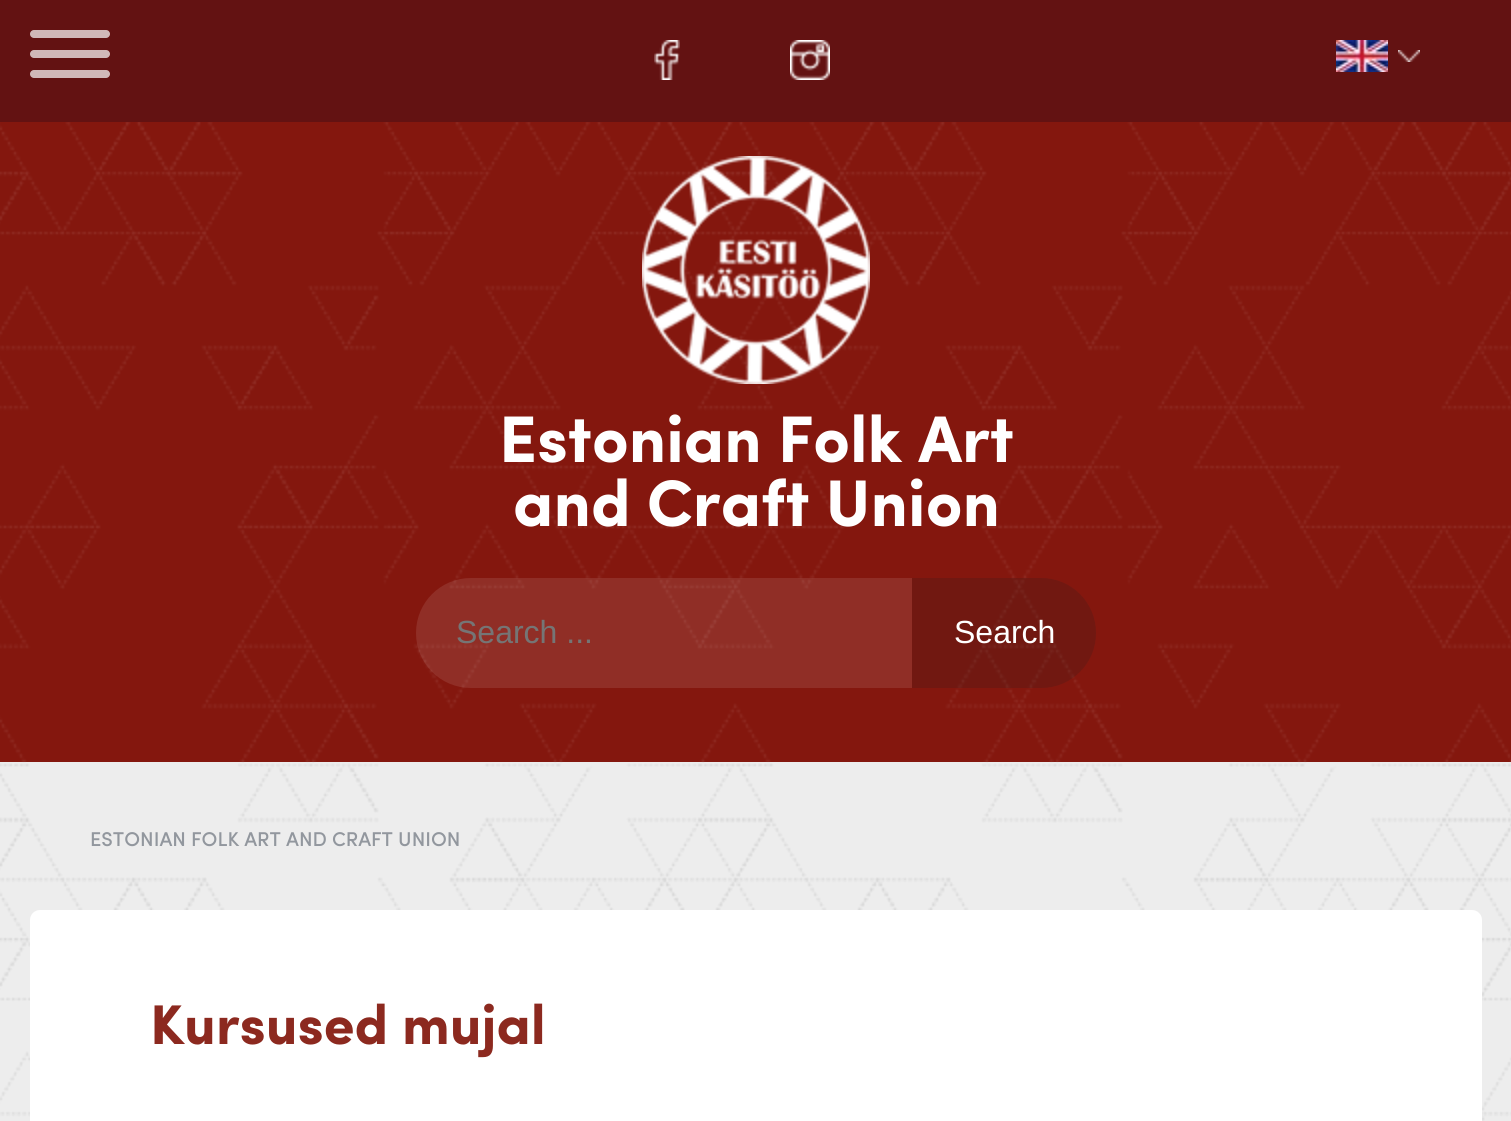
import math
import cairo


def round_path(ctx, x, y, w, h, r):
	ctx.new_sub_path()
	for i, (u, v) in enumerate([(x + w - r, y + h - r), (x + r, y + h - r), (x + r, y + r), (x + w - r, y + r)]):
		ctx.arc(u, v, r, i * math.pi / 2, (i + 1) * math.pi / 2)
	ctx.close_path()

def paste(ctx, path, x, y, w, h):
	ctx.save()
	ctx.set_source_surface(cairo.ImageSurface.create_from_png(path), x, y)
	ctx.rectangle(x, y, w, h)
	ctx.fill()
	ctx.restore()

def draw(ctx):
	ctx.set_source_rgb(0.929, 0.929, 0.929)
	ctx.paint()
	paste(ctx, 'media/1.png', 0, 762, 1511, 359)
	ctx.set_source_rgb(0.518, 0.09, 0.055)
	ctx.rectangle(0, 122, 1511, 640)
	ctx.fill()
	paste(ctx, 'media/2.png', 0, 122, 1511, 640)
	paste(ctx, 'media/3.png', 642, 156, 228, 228)
	ctx.set_source_rgb(0.388, 0.071, 0.071)
	ctx.rectangle(0, 0, 1511, 122)
	ctx.fill()
	ctx.set_source_rgb(0.816, 0.722, 0.722)
	round_path(ctx, 30, 50, 80, 8, 4)
	ctx.fill()
	round_path(ctx, 30, 30, 80, 8, 4)
	ctx.fill()
	round_path(ctx, 30, 70, 80, 8, 4)
	ctx.fill()
	ctx.select_font_face('Sofia', cairo.FONT_SLANT_NORMAL, cairo.FONT_WEIGHT_BOLD)
	ctx.set_font_size(66)
	ctx.set_source_rgb(1, 1, 1)
	ctx.move_to(499, 462)
	ctx.show_text('Estonian Folk Art')
	ctx.move_to(513, 526)
	ctx.show_text('and Craft Union')
	paste(ctx, 'media/4.png', 654, 40, 26, 40)
	paste(ctx, 'media/5.png', 790, 40, 40, 40)
	paste(ctx, 'media/6.png', 1336, 40, 52, 32)
	paste(ctx, 'media/7.png', 1398, 50, 22, 12)
	ctx.set_source_rgba(1, 1, 1, 0.1)
	ctx.new_path()
	ctx.move_to(471, 578)
	ctx.line_to(912, 578)
	ctx.line_to(912, 688)
	ctx.line_to(471, 688)
	ctx.curve_to(440.5, 688, 416, 663.5, 416, 633)
	ctx.curve_to(416, 602.5, 440.5, 578, 471, 578)
	ctx.close_path()
	ctx.fill()
	ctx.select_font_face('Liberation Sans')
	ctx.set_font_size(32)
	ctx.set_source_rgb(0.459, 0.459, 0.459)
	ctx.move_to(456, 643)
	ctx.show_text('Search ...')
	ctx.set_source_rgba(0.137, 0.122, 0.125, 0.2)
	ctx.new_path()
	ctx.move_to(912, 578)
	ctx.line_to(1041, 578)
	ctx.curve_to(1071.5, 578, 1096, 602.5, 1096, 633)
	ctx.curve_to(1096, 663.5, 1071.5, 688, 1041, 688)
	ctx.line_to(912, 688)
	ctx.close_path()
	ctx.fill()
	ctx.set_source_rgb(1, 1, 1)
	ctx.move_to(954, 643)
	ctx.show_text('Search')
	ctx.select_font_face('Sofia Medium')
	ctx.set_font_size(20)
	ctx.set_source_rgb(0.573, 0.592, 0.62)
	ctx.move_to(90, 846)
	ctx.show_text('ESTONIAN FOLK ART AND CRAFT UNION')
	ctx.set_source_rgb(1, 1, 1)
	ctx.new_path()
	ctx.move_to(40, 910)
	ctx.line_to(1472, 910)
	ctx.curve_to(1477.5, 910, 1482, 914.5, 1482, 920)
	ctx.line_to(1482, 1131)
	ctx.line_to(30, 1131)
	ctx.line_to(30, 920)
	ctx.curve_to(30, 914.5, 34.5, 910, 40, 910)
	ctx.close_path()
	ctx.fill()
	ctx.select_font_face('Sofia', cairo.FONT_SLANT_NORMAL, cairo.FONT_WEIGHT_BOLD)
	ctx.set_font_size(56)
	ctx.set_source_rgb(0.549, 0.161, 0.122)
	ctx.move_to(150, 1044)
	ctx.show_text('Kursused mujal')


surface = cairo.ImageSurface(cairo.FORMAT_RGB24, 1511, 1121)
ctx = cairo.Context(surface)
options = cairo.FontOptions()
options.set_hint_metrics(cairo.HINT_METRICS_OFF)
options.set_hint_style(cairo.HINT_STYLE_NONE)
ctx.set_font_options(options)
ctx.set_miter_limit(4)
draw(ctx)
surface.write_to_png('image.png')
